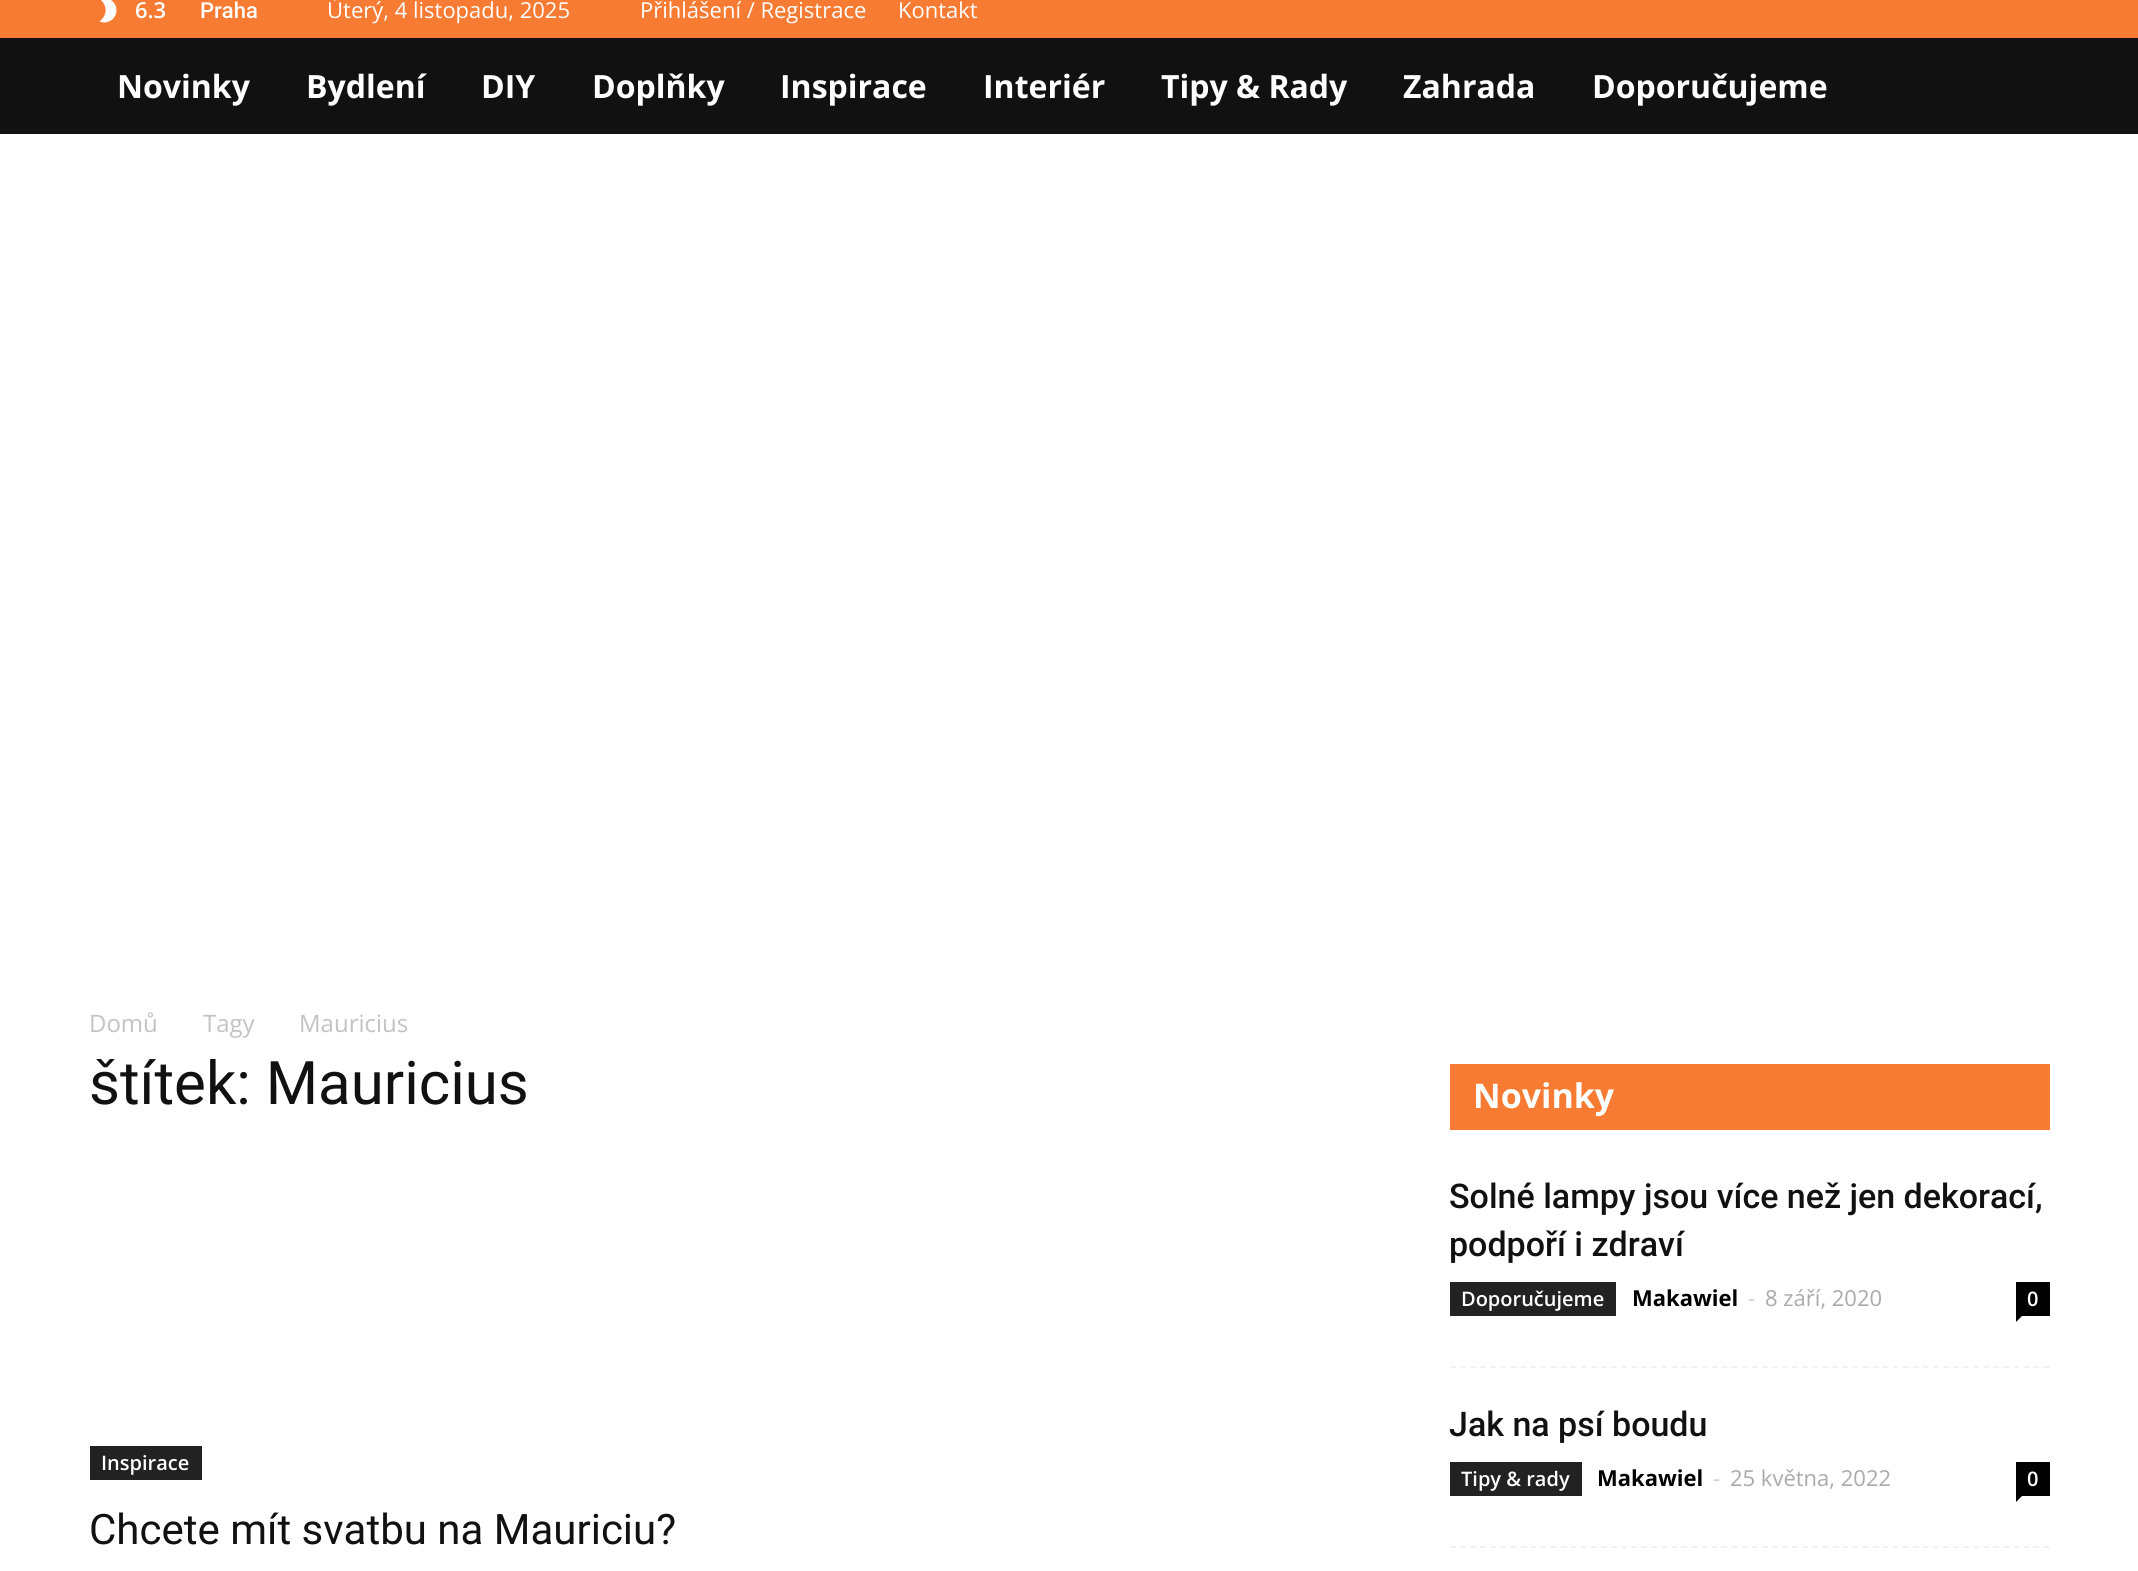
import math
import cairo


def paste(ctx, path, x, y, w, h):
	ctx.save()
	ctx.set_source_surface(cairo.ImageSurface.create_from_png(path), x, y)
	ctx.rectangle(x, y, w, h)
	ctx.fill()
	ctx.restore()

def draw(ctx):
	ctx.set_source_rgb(1, 1, 1)
	ctx.paint()
	ctx.set_source_rgb(0.969, 0.482, 0.2)
	ctx.rectangle(0, 0, 2138, 38)
	ctx.fill()
	paste(ctx, 'media/1.png', 99, 0, 18, 23)
	ctx.select_font_face('Open Sans SemiBold')
	ctx.set_font_size(22)
	ctx.set_source_rgb(1, 1, 1)
	ctx.move_to(135, 18)
	ctx.show_text('6.3')
	ctx.select_font_face('Roboto Medium')
	ctx.move_to(200, 18)
	ctx.show_text('Praha')
	ctx.select_font_face('Open Sans')
	for x, y, s in [
		(327, 18, 'Úterý, 4 listopadu, 2025'),
		(640, 18, 'Přihlášení / Registrace'),
		(898, 18, 'Kontakt'),
	]:
		ctx.move_to(x, y)
		ctx.show_text(s)
	ctx.set_source_rgb(0.067, 0.067, 0.067)
	ctx.rectangle(0, 38, 2138, 96)
	ctx.fill()
	ctx.select_font_face('Open Sans', cairo.FONT_SLANT_NORMAL, cairo.FONT_WEIGHT_BOLD)
	ctx.set_font_size(32)
	ctx.set_source_rgb(1, 1, 1)
	for x, y, s in [
		(117, 98, 'Novinky'),
		(306, 98, 'Bydlení'),
		(481, 98, 'DIY'),
		(592, 98, 'Doplňky'),
		(780, 98, 'Inspirace'),
		(983, 98, 'Interiér'),
		(1161, 98, 'Tipy & Rady'),
		(1403, 98, 'Zahrada'),
		(1592, 98, 'Doporučujeme'),
	]:
		ctx.move_to(x, y)
		ctx.show_text(s)
	ctx.select_font_face('Open Sans')
	ctx.set_font_size(24)
	ctx.set_source_rgb(0.765, 0.765, 0.765)
	for x, y, s in [
		(89, 1032, 'Domů'),
		(203, 1032, 'Tagy'),
		(299, 1032, 'Mauricius'),
	]:
		ctx.move_to(x, y)
		ctx.show_text(s)
	ctx.select_font_face('Roboto')
	ctx.set_font_size(60)
	ctx.set_source_rgb(0.067, 0.067, 0.067)
	ctx.move_to(89, 1104)
	ctx.show_text('štítek: Mauricius')
	ctx.set_source_rgb(0.133, 0.133, 0.133)
	ctx.rectangle(90, 1446, 112, 34)
	ctx.fill()
	ctx.select_font_face('Open Sans SemiBold')
	ctx.set_font_size(20)
	ctx.set_source_rgb(1, 1, 1)
	ctx.move_to(101, 1470)
	ctx.show_text('Inspirace')
	ctx.select_font_face('Roboto')
	ctx.set_font_size(42)
	ctx.set_source_rgb(0.067, 0.067, 0.067)
	ctx.move_to(89, 1544)
	ctx.show_text('Chcete mít svatbu na Mauriciu?')
	ctx.set_source_rgb(0.969, 0.482, 0.2)
	ctx.rectangle(1450, 1064, 600, 66)
	ctx.fill()
	ctx.select_font_face('Open Sans', cairo.FONT_SLANT_NORMAL, cairo.FONT_WEIGHT_BOLD)
	ctx.set_font_size(34)
	ctx.set_source_rgb(1, 1, 1)
	ctx.move_to(1473, 1108)
	ctx.show_text('Novinky')
	ctx.new_path()
	ctx.move_to(1450, 1367)
	ctx.line_to(2050, 1367)
	ctx.set_source_rgb(0.949, 0.949, 0.949)
	ctx.set_dash([6, 4.06])
	ctx.stroke()
	ctx.select_font_face('Roboto Medium')
	ctx.set_source_rgb(0.067, 0.067, 0.067)
	ctx.move_to(1449, 1208)
	ctx.show_text('Solné lampy jsou více než jen dekorací,')
	ctx.move_to(1449, 1256)
	ctx.show_text('podpoří i zdraví')
	ctx.set_source_rgb(0.133, 0.133, 0.133)
	ctx.rectangle(1450, 1282, 166, 34)
	ctx.fill()
	ctx.select_font_face('Open Sans SemiBold')
	ctx.set_font_size(20)
	ctx.set_source_rgb(1, 1, 1)
	ctx.move_to(1461, 1306)
	ctx.show_text('Doporučujeme')
	ctx.select_font_face('Open Sans', cairo.FONT_SLANT_NORMAL, cairo.FONT_WEIGHT_BOLD)
	ctx.set_font_size(22)
	ctx.set_source_rgb(0, 0, 0)
	ctx.move_to(1632, 1306)
	ctx.show_text('Makawiel')
	ctx.select_font_face('Open Sans')
	ctx.set_source_rgb(0.8, 0.8, 0.8)
	ctx.move_to(1748, 1306)
	ctx.show_text('-')
	ctx.set_source_rgb(0.667, 0.667, 0.667)
	ctx.move_to(1765, 1306)
	ctx.show_text('8 září, 2020')
	ctx.set_source_rgb(0, 0, 0)
	ctx.rectangle(2016, 1282, 34, 34)
	ctx.fill()
	ctx.select_font_face('Open Sans SemiBold')
	ctx.set_font_size(20)
	ctx.set_source_rgb(1, 1, 1)
	ctx.move_to(2027, 1306)
	ctx.show_text('0')
	ctx.set_source_rgb(0, 0, 0)
	ctx.new_path()
	ctx.move_to(2016, 1316)
	ctx.line_to(2022, 1316)
	ctx.line_to(2016, 1322)
	ctx.close_path()
	ctx.fill()
	ctx.new_path()
	ctx.move_to(1450, 1547)
	ctx.line_to(2050, 1547)
	ctx.set_source_rgb(0.949, 0.949, 0.949)
	ctx.stroke()
	ctx.select_font_face('Roboto Medium')
	ctx.set_font_size(34)
	ctx.set_source_rgb(0.067, 0.067, 0.067)
	ctx.move_to(1449, 1436)
	ctx.show_text('Jak na psí boudu')
	ctx.set_source_rgb(0.133, 0.133, 0.133)
	ctx.rectangle(1450, 1462, 132, 34)
	ctx.fill()
	ctx.select_font_face('Open Sans SemiBold')
	ctx.set_font_size(20)
	ctx.set_source_rgb(1, 1, 1)
	ctx.move_to(1461, 1486)
	ctx.show_text('Tipy & rady')
	ctx.select_font_face('Open Sans', cairo.FONT_SLANT_NORMAL, cairo.FONT_WEIGHT_BOLD)
	ctx.set_font_size(22)
	ctx.set_source_rgb(0, 0, 0)
	ctx.move_to(1597, 1486)
	ctx.show_text('Makawiel')
	ctx.select_font_face('Open Sans')
	ctx.set_source_rgb(0.8, 0.8, 0.8)
	ctx.move_to(1713, 1486)
	ctx.show_text('-')
	ctx.set_source_rgb(0.667, 0.667, 0.667)
	ctx.move_to(1730, 1486)
	ctx.show_text('25 května, 2022')
	ctx.set_source_rgb(0, 0, 0)
	ctx.rectangle(2016, 1462, 34, 34)
	ctx.fill()
	ctx.select_font_face('Open Sans SemiBold')
	ctx.set_font_size(20)
	ctx.set_source_rgb(1, 1, 1)
	ctx.move_to(2027, 1486)
	ctx.show_text('0')
	ctx.set_source_rgb(0, 0, 0)
	ctx.new_path()
	ctx.move_to(2016, 1496)
	ctx.line_to(2022, 1496)
	ctx.line_to(2016, 1502)
	ctx.close_path()
	ctx.fill()


surface = cairo.ImageSurface(cairo.FORMAT_RGB24, 2138, 1571)
ctx = cairo.Context(surface)
options = cairo.FontOptions()
options.set_hint_metrics(cairo.HINT_METRICS_OFF)
options.set_hint_style(cairo.HINT_STYLE_NONE)
ctx.set_font_options(options)
ctx.set_miter_limit(4)
draw(ctx)
surface.write_to_png('image.png')
